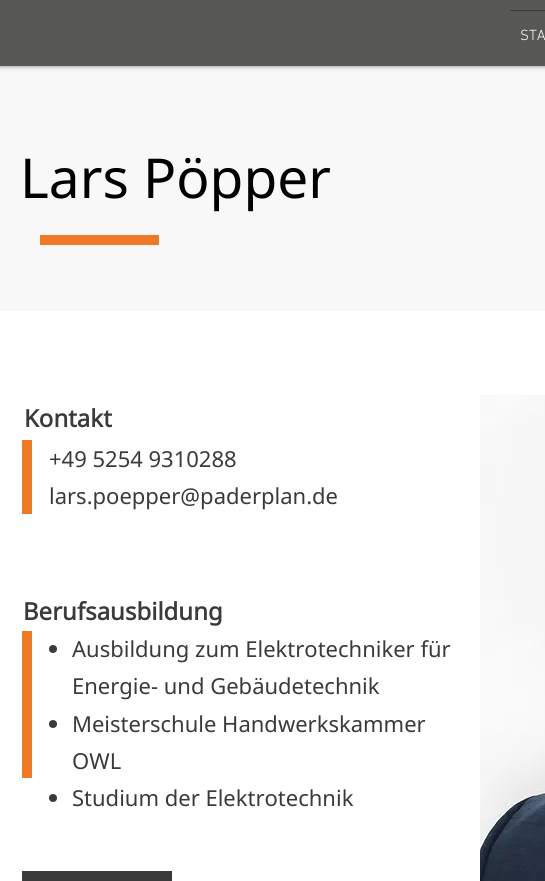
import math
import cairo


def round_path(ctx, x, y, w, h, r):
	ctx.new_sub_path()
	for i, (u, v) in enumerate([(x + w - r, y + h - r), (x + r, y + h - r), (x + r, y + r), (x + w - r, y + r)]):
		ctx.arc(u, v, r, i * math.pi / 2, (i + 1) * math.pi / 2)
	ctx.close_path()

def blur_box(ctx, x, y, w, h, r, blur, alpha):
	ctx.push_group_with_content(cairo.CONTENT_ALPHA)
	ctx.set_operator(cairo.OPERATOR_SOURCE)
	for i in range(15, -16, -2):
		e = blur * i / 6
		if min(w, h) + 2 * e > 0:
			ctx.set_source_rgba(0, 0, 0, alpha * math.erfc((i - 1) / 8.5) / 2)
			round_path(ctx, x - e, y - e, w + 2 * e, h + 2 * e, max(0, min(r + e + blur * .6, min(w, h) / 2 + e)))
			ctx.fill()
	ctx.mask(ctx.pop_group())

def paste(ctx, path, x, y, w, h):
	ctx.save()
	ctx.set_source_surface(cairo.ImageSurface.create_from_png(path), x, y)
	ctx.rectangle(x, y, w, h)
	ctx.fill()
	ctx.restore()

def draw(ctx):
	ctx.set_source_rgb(0.969, 0.969, 0.969)
	ctx.paint()
	ctx.set_source_rgb(0, 0, 0)
	blur_box(ctx, 0, 0, 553, 66, 0, 2.5, 0.5)
	ctx.set_source_rgb(0.341, 0.341, 0.337)
	ctx.rectangle(0, 0, 545, 66)
	ctx.fill()
	ctx.set_source_rgb(0.231, 0.227, 0.227)
	ctx.rectangle(510, 10, 35, 1)
	ctx.fill()
	ctx.select_font_face('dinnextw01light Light')
	ctx.set_font_size(15)
	ctx.set_source_rgb(1, 1, 1)
	ctx.move_to(520, 40)
	ctx.show_text('STA')
	ctx.select_font_face('Noto Sans')
	ctx.set_font_size(55)
	ctx.set_source_rgb(0, 0, 0)
	ctx.move_to(20, 198)
	ctx.show_text('Lars Pöpper')
	ctx.set_source_rgb(0.937, 0.475, 0.141)
	ctx.rectangle(40, 235, 119, 10)
	ctx.fill()
	ctx.set_source_rgb(1, 1, 1)
	ctx.rectangle(0, 311, 545, 570)
	ctx.fill()
	ctx.select_font_face('Noto Sans', cairo.FONT_SLANT_NORMAL, cairo.FONT_WEIGHT_BOLD)
	ctx.set_font_size(24)
	ctx.set_source_rgb(0.231, 0.227, 0.227)
	ctx.move_to(24, 427)
	ctx.show_text('Kontakt')
	ctx.select_font_face('Noto Sans')
	ctx.set_font_size(22)
	ctx.move_to(49, 467)
	ctx.show_text('+49 5254 9310288')
	ctx.move_to(49, 504)
	ctx.show_text('lars.poepper@paderplan.de')
	paste(ctx, 'media/1.png', 480, 395, 65, 486)
	ctx.set_source_rgb(0.937, 0.475, 0.141)
	ctx.rectangle(22, 440, 10, 74)
	ctx.fill()
	ctx.select_font_face('Noto Sans', cairo.FONT_SLANT_NORMAL, cairo.FONT_WEIGHT_BOLD)
	ctx.set_font_size(24)
	ctx.set_source_rgb(0.231, 0.227, 0.227)
	ctx.move_to(23, 620)
	ctx.show_text('Berufsausbildung')
	ctx.set_source_rgb(0.937, 0.475, 0.141)
	ctx.rectangle(22, 631, 10, 147)
	ctx.fill()
	ctx.set_source_rgb(0.231, 0.227, 0.227)
	ctx.arc(53, 649, 4, 0, 2 * math.pi)
	ctx.fill()
	ctx.select_font_face('Noto Sans')
	ctx.set_font_size(22)
	ctx.move_to(72, 657)
	ctx.show_text('Ausbildung zum Elektrotechniker für')
	ctx.move_to(72, 694)
	ctx.show_text('Energie- und Gebäudetechnik')
	ctx.new_path()
	ctx.arc(53, 724, 4, 0, 2 * math.pi)
	ctx.fill()
	ctx.move_to(72, 732)
	ctx.show_text('Meisterschule Handwerkskammer')
	ctx.move_to(72, 769)
	ctx.show_text('OWL')
	ctx.new_path()
	ctx.arc(53, 798, 4, 0, 2 * math.pi)
	ctx.fill()
	ctx.move_to(72, 806)
	ctx.show_text('Studium der Elektrotechnik')
	ctx.rectangle(22, 871, 150, 10)
	ctx.fill()


surface = cairo.ImageSurface(cairo.FORMAT_RGB24, 545, 881)
ctx = cairo.Context(surface)
options = cairo.FontOptions()
options.set_hint_metrics(cairo.HINT_METRICS_OFF)
options.set_hint_style(cairo.HINT_STYLE_NONE)
ctx.set_font_options(options)
ctx.set_miter_limit(4)
draw(ctx)
surface.write_to_png('image.png')
